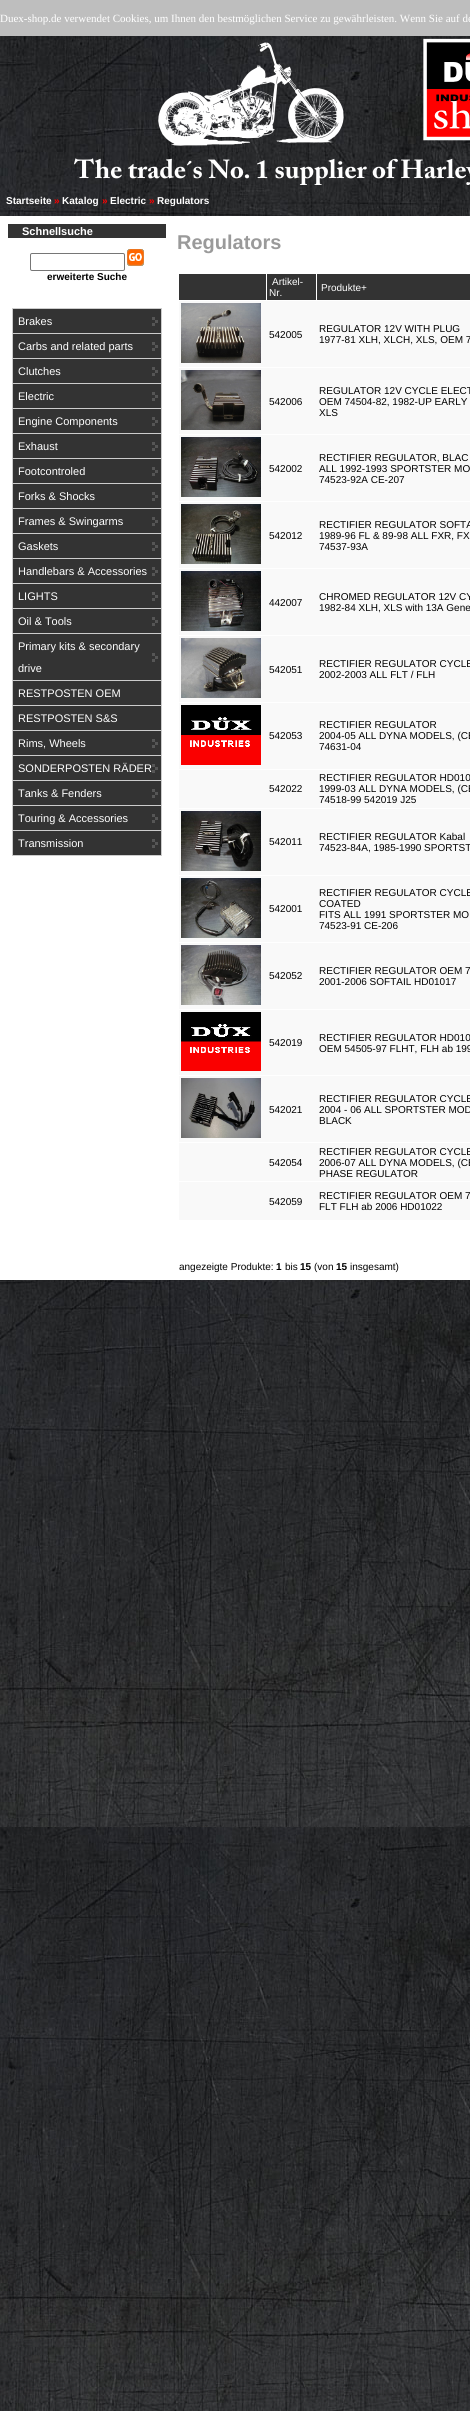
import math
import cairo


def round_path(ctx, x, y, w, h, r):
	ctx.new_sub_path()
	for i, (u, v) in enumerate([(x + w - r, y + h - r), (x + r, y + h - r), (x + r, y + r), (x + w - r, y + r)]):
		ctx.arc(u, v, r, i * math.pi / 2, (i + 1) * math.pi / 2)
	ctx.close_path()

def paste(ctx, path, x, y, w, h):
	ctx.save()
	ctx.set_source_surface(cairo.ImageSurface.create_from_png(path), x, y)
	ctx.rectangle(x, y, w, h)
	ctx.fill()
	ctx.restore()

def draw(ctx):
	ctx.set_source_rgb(1, 1, 1)
	ctx.paint()
	paste(ctx, 'media/1.png', 0, 36, 470, 2375)
	ctx.set_source_rgb(0.745, 0.745, 0.745)
	ctx.rectangle(0, 0, 470, 36)
	ctx.fill()
	ctx.select_font_face('Liberation Serif')
	ctx.set_font_size(11)
	ctx.set_source_rgb(1, 1, 1)
	ctx.move_to(0, 22)
	ctx.show_text('Duex-shop.de verwendet Cookies, um Ihnen den bestmöglichen Service zu gewährleisten. Wenn Sie auf de')
	paste(ctx, 'media/2.png', 74, 38, 396, 147)
	ctx.select_font_face('Liberation Sans', cairo.FONT_SLANT_NORMAL, cairo.FONT_WEIGHT_BOLD)
	ctx.set_font_size(10)
	ctx.move_to(6, 204)
	ctx.show_text('Startseite')
	ctx.set_source_rgb(1, 0, 0)
	ctx.move_to(54, 204)
	ctx.show_text('»')
	ctx.set_source_rgb(1, 1, 1)
	ctx.move_to(62, 204)
	ctx.show_text('Katalog')
	ctx.set_source_rgb(1, 0, 0)
	ctx.move_to(102, 204)
	ctx.show_text('»')
	ctx.set_source_rgb(1, 1, 1)
	ctx.move_to(110, 204)
	ctx.show_text('Electric')
	ctx.set_source_rgb(1, 0, 0)
	ctx.move_to(149, 204)
	ctx.show_text('»')
	ctx.set_source_rgb(1, 1, 1)
	ctx.move_to(157, 204)
	ctx.show_text('Regulators')
	ctx.rectangle(0, 216, 470, 1064)
	ctx.fill()
	ctx.set_source_rgb(0.2, 0.2, 0.2)
	ctx.rectangle(8, 224, 158, 14)
	ctx.fill()
	ctx.set_font_size(11)
	ctx.set_source_rgb(1, 1, 1)
	ctx.move_to(22, 235)
	ctx.show_text('Schnellsuche')
	round_path(ctx, 30.5, 253.5, 94, 17, 1.5)
	ctx.set_source_rgb(0.463, 0.463, 0.463)
	ctx.set_line_width(1)
	ctx.stroke()
	paste(ctx, 'media/3.png', 127, 249, 17, 17)
	ctx.set_font_size(10)
	ctx.set_source_rgb(0, 0, 0)
	ctx.move_to(47, 280)
	ctx.show_text('erweiterte Suche')
	ctx.set_source_rgb(0.8, 0.8, 0.8)
	ctx.rectangle(12, 855, 150, 1)
	ctx.fill()
	ctx.set_source_rgb(0.2, 0.2, 0.2)
	ctx.rectangle(13, 309, 148, 24)
	ctx.fill()
	paste(ctx, 'media/4.png', 152, 317, 6, 9)
	ctx.set_source_rgb(0.8, 0.8, 0.8)
	ctx.rectangle(12, 308, 150, 1)
	ctx.rectangle(161, 308, 1, 25)
	ctx.rectangle(12, 308, 1, 25)
	ctx.fill()
	ctx.select_font_face('Liberation Sans')
	ctx.set_font_size(11)
	ctx.set_source_rgb(1, 1, 1)
	ctx.move_to(18, 325)
	ctx.show_text('Brakes')
	ctx.set_source_rgb(0.2, 0.2, 0.2)
	ctx.rectangle(13, 334, 148, 24)
	ctx.fill()
	paste(ctx, 'media/4.png', 152, 342, 6, 9)
	ctx.set_source_rgb(0.8, 0.8, 0.8)
	ctx.rectangle(12, 333, 150, 1)
	ctx.rectangle(161, 333, 1, 25)
	ctx.rectangle(12, 333, 1, 25)
	ctx.fill()
	ctx.set_source_rgb(1, 1, 1)
	ctx.move_to(18, 350)
	ctx.show_text('Carbs and related parts')
	ctx.set_source_rgb(0.2, 0.2, 0.2)
	ctx.rectangle(13, 359, 148, 24)
	ctx.fill()
	paste(ctx, 'media/4.png', 152, 367, 6, 9)
	ctx.set_source_rgb(0.8, 0.8, 0.8)
	ctx.rectangle(12, 358, 150, 1)
	ctx.rectangle(161, 358, 1, 25)
	ctx.rectangle(12, 358, 1, 25)
	ctx.fill()
	ctx.set_source_rgb(1, 1, 1)
	ctx.move_to(18, 375)
	ctx.show_text('Clutches')
	ctx.set_source_rgb(0.2, 0.2, 0.2)
	ctx.rectangle(13, 384, 148, 24)
	ctx.fill()
	paste(ctx, 'media/4.png', 152, 392, 6, 9)
	ctx.set_source_rgb(0.8, 0.8, 0.8)
	ctx.rectangle(12, 383, 150, 1)
	ctx.rectangle(161, 383, 1, 25)
	ctx.rectangle(12, 383, 1, 25)
	ctx.fill()
	ctx.set_source_rgb(1, 1, 1)
	ctx.move_to(18, 400)
	ctx.show_text('Electric')
	ctx.set_source_rgb(0.2, 0.2, 0.2)
	ctx.rectangle(13, 409, 148, 24)
	ctx.fill()
	paste(ctx, 'media/4.png', 152, 417, 6, 9)
	ctx.set_source_rgb(0.8, 0.8, 0.8)
	ctx.rectangle(12, 408, 150, 1)
	ctx.rectangle(161, 408, 1, 25)
	ctx.rectangle(12, 408, 1, 25)
	ctx.fill()
	ctx.set_source_rgb(1, 1, 1)
	ctx.move_to(18, 425)
	ctx.show_text('Engine Components')
	ctx.set_source_rgb(0.2, 0.2, 0.2)
	ctx.rectangle(13, 434, 148, 24)
	ctx.fill()
	paste(ctx, 'media/4.png', 152, 442, 6, 9)
	ctx.set_source_rgb(0.8, 0.8, 0.8)
	ctx.rectangle(12, 433, 150, 1)
	ctx.rectangle(161, 433, 1, 25)
	ctx.rectangle(12, 433, 1, 25)
	ctx.fill()
	ctx.set_source_rgb(1, 1, 1)
	ctx.move_to(18, 450)
	ctx.show_text('Exhaust')
	ctx.set_source_rgb(0.2, 0.2, 0.2)
	ctx.rectangle(13, 459, 148, 24)
	ctx.fill()
	paste(ctx, 'media/4.png', 152, 467, 6, 9)
	ctx.set_source_rgb(0.8, 0.8, 0.8)
	ctx.rectangle(12, 458, 150, 1)
	ctx.rectangle(161, 458, 1, 25)
	ctx.rectangle(12, 458, 1, 25)
	ctx.fill()
	ctx.set_source_rgb(1, 1, 1)
	ctx.move_to(18, 475)
	ctx.show_text('Footcontroled')
	ctx.set_source_rgb(0.2, 0.2, 0.2)
	ctx.rectangle(13, 484, 148, 24)
	ctx.fill()
	paste(ctx, 'media/4.png', 152, 492, 6, 9)
	ctx.set_source_rgb(0.8, 0.8, 0.8)
	ctx.rectangle(12, 483, 150, 1)
	ctx.rectangle(161, 483, 1, 25)
	ctx.rectangle(12, 483, 1, 25)
	ctx.fill()
	ctx.set_source_rgb(1, 1, 1)
	ctx.move_to(18, 500)
	ctx.show_text('Forks & Shocks')
	ctx.set_source_rgb(0.2, 0.2, 0.2)
	ctx.rectangle(13, 509, 148, 24)
	ctx.fill()
	paste(ctx, 'media/4.png', 152, 517, 6, 9)
	ctx.set_source_rgb(0.8, 0.8, 0.8)
	ctx.rectangle(12, 508, 150, 1)
	ctx.rectangle(161, 508, 1, 25)
	ctx.rectangle(12, 508, 1, 25)
	ctx.fill()
	ctx.set_source_rgb(1, 1, 1)
	ctx.move_to(18, 525)
	ctx.show_text('Frames & Swingarms')
	ctx.set_source_rgb(0.2, 0.2, 0.2)
	ctx.rectangle(13, 534, 148, 24)
	ctx.fill()
	paste(ctx, 'media/4.png', 152, 542, 6, 9)
	ctx.set_source_rgb(0.8, 0.8, 0.8)
	ctx.rectangle(12, 533, 150, 1)
	ctx.rectangle(161, 533, 1, 25)
	ctx.rectangle(12, 533, 1, 25)
	ctx.fill()
	ctx.set_source_rgb(1, 1, 1)
	ctx.move_to(18, 550)
	ctx.show_text('Gaskets')
	ctx.set_source_rgb(0.2, 0.2, 0.2)
	ctx.rectangle(13, 559, 148, 24)
	ctx.fill()
	paste(ctx, 'media/4.png', 152, 567, 6, 9)
	ctx.set_source_rgb(0.8, 0.8, 0.8)
	ctx.rectangle(12, 558, 150, 1)
	ctx.rectangle(161, 558, 1, 25)
	ctx.rectangle(12, 558, 1, 25)
	ctx.fill()
	ctx.set_source_rgb(1, 1, 1)
	ctx.move_to(18, 575)
	ctx.show_text('Handlebars & Accessories')
	ctx.set_source_rgb(0.2, 0.2, 0.2)
	ctx.rectangle(13, 584, 148, 24)
	ctx.fill()
	paste(ctx, 'media/4.png', 152, 592, 6, 9)
	ctx.set_source_rgb(0.8, 0.8, 0.8)
	ctx.rectangle(12, 583, 150, 1)
	ctx.rectangle(161, 583, 1, 25)
	ctx.rectangle(12, 583, 1, 25)
	ctx.fill()
	ctx.set_source_rgb(1, 1, 1)
	ctx.move_to(18, 600)
	ctx.show_text('LIGHTS')
	ctx.set_source_rgb(0.2, 0.2, 0.2)
	ctx.rectangle(13, 609, 148, 24)
	ctx.fill()
	paste(ctx, 'media/4.png', 152, 617, 6, 9)
	ctx.set_source_rgb(0.8, 0.8, 0.8)
	ctx.rectangle(12, 608, 150, 1)
	ctx.rectangle(161, 608, 1, 25)
	ctx.rectangle(12, 608, 1, 25)
	ctx.fill()
	ctx.set_source_rgb(1, 1, 1)
	ctx.move_to(18, 625)
	ctx.show_text('Oil & Tools')
	ctx.set_source_rgb(0.2, 0.2, 0.2)
	ctx.rectangle(13, 634, 148, 46)
	ctx.fill()
	paste(ctx, 'media/4.png', 152, 653, 6, 9)
	ctx.set_source_rgb(0.8, 0.8, 0.8)
	ctx.rectangle(12, 633, 150, 1)
	ctx.rectangle(161, 633, 1, 47)
	ctx.rectangle(12, 633, 1, 47)
	ctx.fill()
	ctx.set_source_rgb(1, 1, 1)
	ctx.move_to(18, 650)
	ctx.show_text('Primary kits & secondary')
	ctx.move_to(18, 672)
	ctx.show_text('drive')
	ctx.set_source_rgb(0.2, 0.2, 0.2)
	ctx.rectangle(13, 681, 148, 24)
	ctx.fill()
	ctx.set_source_rgb(0.8, 0.8, 0.8)
	ctx.rectangle(12, 680, 150, 1)
	ctx.rectangle(161, 680, 1, 25)
	ctx.rectangle(12, 680, 1, 25)
	ctx.fill()
	ctx.set_source_rgb(1, 1, 1)
	ctx.move_to(18, 697)
	ctx.show_text('RESTPOSTEN OEM')
	ctx.set_source_rgb(0.2, 0.2, 0.2)
	ctx.rectangle(13, 706, 148, 24)
	ctx.fill()
	ctx.set_source_rgb(0.8, 0.8, 0.8)
	ctx.rectangle(12, 705, 150, 1)
	ctx.rectangle(161, 705, 1, 25)
	ctx.rectangle(12, 705, 1, 25)
	ctx.fill()
	ctx.set_source_rgb(1, 1, 1)
	ctx.move_to(18, 722)
	ctx.show_text('RESTPOSTEN S&S')
	ctx.set_source_rgb(0.2, 0.2, 0.2)
	ctx.rectangle(13, 731, 148, 24)
	ctx.fill()
	paste(ctx, 'media/4.png', 152, 739, 6, 9)
	ctx.set_source_rgb(0.8, 0.8, 0.8)
	ctx.rectangle(12, 730, 150, 1)
	ctx.rectangle(161, 730, 1, 25)
	ctx.rectangle(12, 730, 1, 25)
	ctx.fill()
	ctx.set_source_rgb(1, 1, 1)
	ctx.move_to(18, 747)
	ctx.show_text('Rims, Wheels')
	ctx.set_source_rgb(0.2, 0.2, 0.2)
	ctx.rectangle(13, 756, 148, 24)
	ctx.fill()
	paste(ctx, 'media/4.png', 152, 764, 6, 9)
	ctx.set_source_rgb(0.8, 0.8, 0.8)
	ctx.rectangle(12, 755, 150, 1)
	ctx.rectangle(161, 755, 1, 25)
	ctx.rectangle(12, 755, 1, 25)
	ctx.fill()
	ctx.set_source_rgb(1, 1, 1)
	ctx.move_to(18, 772)
	ctx.show_text('SONDERPOSTEN RÄDER')
	ctx.set_source_rgb(0.2, 0.2, 0.2)
	ctx.rectangle(13, 781, 148, 24)
	ctx.fill()
	paste(ctx, 'media/4.png', 152, 789, 6, 9)
	ctx.set_source_rgb(0.8, 0.8, 0.8)
	ctx.rectangle(12, 780, 150, 1)
	ctx.rectangle(161, 780, 1, 25)
	ctx.rectangle(12, 780, 1, 25)
	ctx.fill()
	ctx.set_source_rgb(1, 1, 1)
	ctx.move_to(18, 797)
	ctx.show_text('Tanks & Fenders')
	ctx.set_source_rgb(0.2, 0.2, 0.2)
	ctx.rectangle(13, 806, 148, 24)
	ctx.fill()
	paste(ctx, 'media/4.png', 152, 814, 6, 9)
	ctx.set_source_rgb(0.8, 0.8, 0.8)
	ctx.rectangle(12, 805, 150, 1)
	ctx.rectangle(161, 805, 1, 25)
	ctx.rectangle(12, 805, 1, 25)
	ctx.fill()
	ctx.set_source_rgb(1, 1, 1)
	ctx.move_to(18, 822)
	ctx.show_text('Touring & Accessories')
	ctx.set_source_rgb(0.2, 0.2, 0.2)
	ctx.rectangle(13, 831, 148, 24)
	ctx.fill()
	paste(ctx, 'media/4.png', 152, 839, 6, 9)
	ctx.set_source_rgb(0.8, 0.8, 0.8)
	ctx.rectangle(12, 830, 150, 1)
	ctx.rectangle(161, 830, 1, 25)
	ctx.rectangle(12, 830, 1, 25)
	ctx.fill()
	ctx.set_source_rgb(1, 1, 1)
	ctx.move_to(18, 847)
	ctx.show_text('Transmission')
	ctx.select_font_face('Liberation Sans', cairo.FONT_SLANT_NORMAL, cairo.FONT_WEIGHT_BOLD)
	ctx.set_font_size(20)
	ctx.set_source_rgb(0.604, 0.604, 0.604)
	ctx.move_to(177, 249)
	ctx.show_text('Regulators')
	ctx.set_source_rgb(0.2, 0.2, 0.2)
	ctx.rectangle(179, 274, 87, 26)
	ctx.fill()
	ctx.rectangle(267, 274, 49, 26)
	ctx.fill()
	ctx.select_font_face('Liberation Sans')
	ctx.set_font_size(10)
	ctx.set_source_rgb(1, 1, 1)
	ctx.move_to(272, 285)
	ctx.show_text('Artikel-')
	ctx.move_to(269, 296)
	ctx.show_text('Nr.')
	ctx.set_source_rgb(0.2, 0.2, 0.2)
	ctx.rectangle(317, 274, 153, 26)
	ctx.fill()
	ctx.set_source_rgb(1, 1, 1)
	ctx.move_to(321, 291)
	ctx.show_text('Produkte+')
	ctx.set_source_rgb(0.973, 0.973, 0.976)
	ctx.rectangle(179, 301, 291, 66)
	ctx.fill()
	paste(ctx, 'media/5.png', 181, 303, 80, 60)
	ctx.set_source_rgb(0, 0, 0)
	for x, y, s in [
		(269, 338, '542005'),
		(319, 332, 'REGULATOR 12V WITH PLUG'),
		(319, 343, '1977-81 XLH, XLCH, XLS, OEM 7'),
	]:
		ctx.move_to(x, y)
		ctx.show_text(s)
	ctx.set_source_rgb(0.973, 0.973, 0.976)
	ctx.rectangle(179, 368, 291, 66)
	ctx.fill()
	paste(ctx, 'media/6.png', 181, 370, 80, 60)
	ctx.set_source_rgb(0, 0, 0)
	for x, y, s in [
		(269, 405, '542006'),
		(319, 394, 'REGULATOR 12V CYCLE ELECT'),
		(319, 405, 'OEM 74504-82, 1982-UP EARLY'),
		(319, 416, 'XLS'),
	]:
		ctx.move_to(x, y)
		ctx.show_text(s)
	ctx.set_source_rgb(0.973, 0.973, 0.976)
	ctx.rectangle(179, 435, 291, 66)
	ctx.fill()
	paste(ctx, 'media/7.png', 181, 437, 80, 60)
	ctx.set_source_rgb(0, 0, 0)
	for x, y, s in [
		(269, 472, '542002'),
		(319, 461, 'RECTIFIER REGULATOR, BLAC'),
		(319, 472, 'ALL 1992-1993 SPORTSTER MO'),
		(319, 483, '74523-92A CE-207'),
	]:
		ctx.move_to(x, y)
		ctx.show_text(s)
	ctx.set_source_rgb(0.973, 0.973, 0.976)
	ctx.rectangle(179, 502, 291, 66)
	ctx.fill()
	paste(ctx, 'media/8.png', 181, 504, 80, 60)
	ctx.set_source_rgb(0, 0, 0)
	for x, y, s in [
		(269, 539, '542012'),
		(319, 528, 'RECTIFIER REGULATOR SOFTA'),
		(319, 539, '1989-96 FL & 89-98 ALL FXR, FX'),
		(319, 550, '74537-93A'),
	]:
		ctx.move_to(x, y)
		ctx.show_text(s)
	ctx.set_source_rgb(0.973, 0.973, 0.976)
	ctx.rectangle(179, 569, 291, 66)
	ctx.fill()
	paste(ctx, 'media/9.png', 181, 571, 80, 60)
	ctx.set_source_rgb(0, 0, 0)
	for x, y, s in [
		(269, 606, '442007'),
		(319, 600, 'CHROMED REGULATOR 12V CY'),
		(319, 611, '1982-84 XLH, XLS with 13A Gene'),
	]:
		ctx.move_to(x, y)
		ctx.show_text(s)
	ctx.set_source_rgb(0.973, 0.973, 0.976)
	ctx.rectangle(179, 636, 291, 66)
	ctx.fill()
	paste(ctx, 'media/10.png', 181, 638, 80, 60)
	ctx.set_source_rgb(0, 0, 0)
	for x, y, s in [
		(269, 673, '542051'),
		(319, 667, 'RECTIFIER REGULATOR CYCLE'),
		(319, 678, '2002-2003 ALL FLT / FLH'),
	]:
		ctx.move_to(x, y)
		ctx.show_text(s)
	ctx.set_source_rgb(0.973, 0.973, 0.976)
	ctx.rectangle(179, 703, 291, 66)
	ctx.fill()
	paste(ctx, 'media/11.png', 181, 705, 80, 60)
	ctx.set_source_rgb(0, 0, 0)
	for x, y, s in [
		(269, 739, '542053'),
		(319, 728, 'RECTIFIER REGULATOR'),
		(319, 739, '2004-05 ALL DYNA MODELS, (CE'),
		(319, 750, '74631-04'),
	]:
		ctx.move_to(x, y)
		ctx.show_text(s)
	ctx.set_source_rgb(0.973, 0.973, 0.976)
	ctx.rectangle(179, 770, 291, 38)
	ctx.fill()
	ctx.set_source_rgb(0, 0, 0)
	for x, y, s in [
		(269, 792, '542022'),
		(319, 781, 'RECTIFIER REGULATOR HD010'),
		(319, 792, '1999-03 ALL DYNA MODELS, (CE'),
		(319, 803, '74518-99 542019 J25'),
	]:
		ctx.move_to(x, y)
		ctx.show_text(s)
	ctx.set_source_rgb(0.973, 0.973, 0.976)
	ctx.rectangle(179, 809, 291, 66)
	ctx.fill()
	paste(ctx, 'media/12.png', 181, 811, 80, 60)
	ctx.set_source_rgb(0, 0, 0)
	for x, y, s in [
		(269, 845, '542011'),
		(319, 840, 'RECTIFIER REGULATOR Kabal'),
		(319, 851, '74523-84A, 1985-1990 SPORTST'),
	]:
		ctx.move_to(x, y)
		ctx.show_text(s)
	ctx.set_source_rgb(0.973, 0.973, 0.976)
	ctx.rectangle(179, 876, 291, 66)
	ctx.fill()
	paste(ctx, 'media/13.png', 181, 878, 80, 60)
	ctx.set_source_rgb(0, 0, 0)
	for x, y, s in [
		(269, 912, '542001'),
		(319, 896, 'RECTIFIER REGULATOR CYCLE'),
		(319, 907, 'COATED'),
		(319, 918, 'FITS ALL 1991 SPORTSTER MO'),
		(319, 929, '74523-91 CE-206'),
	]:
		ctx.move_to(x, y)
		ctx.show_text(s)
	ctx.set_source_rgb(0.973, 0.973, 0.976)
	ctx.rectangle(179, 943, 291, 66)
	ctx.fill()
	paste(ctx, 'media/14.png', 181, 945, 80, 60)
	ctx.set_source_rgb(0, 0, 0)
	for x, y, s in [
		(269, 979, '542052'),
		(319, 974, 'RECTIFIER REGULATOR OEM 7'),
		(319, 985, '2001-2006 SOFTAIL HD01017'),
	]:
		ctx.move_to(x, y)
		ctx.show_text(s)
	ctx.set_source_rgb(0.973, 0.973, 0.976)
	ctx.rectangle(179, 1010, 291, 65)
	ctx.fill()
	paste(ctx, 'media/15.png', 181, 1012, 80, 59)
	ctx.set_source_rgb(0, 0, 0)
	for x, y, s in [
		(269, 1046, '542019'),
		(319, 1041, 'RECTIFIER REGULATOR HD010'),
		(319, 1052, 'OEM 54505-97 FLHT, FLH ab 199'),
	]:
		ctx.move_to(x, y)
		ctx.show_text(s)
	ctx.set_source_rgb(0.973, 0.973, 0.976)
	ctx.rectangle(179, 1076, 291, 66)
	ctx.fill()
	paste(ctx, 'media/16.png', 181, 1078, 80, 60)
	ctx.set_source_rgb(0, 0, 0)
	for x, y, s in [
		(269, 1113, '542021'),
		(319, 1102, 'RECTIFIER REGULATOR CYCLE'),
		(319, 1113, '2004 - 06 ALL SPORTSTER MOD'),
		(319, 1124, 'BLACK'),
	]:
		ctx.move_to(x, y)
		ctx.show_text(s)
	ctx.set_source_rgb(0.973, 0.973, 0.976)
	ctx.rectangle(179, 1143, 291, 38)
	ctx.fill()
	ctx.set_source_rgb(0, 0, 0)
	for x, y, s in [
		(269, 1166, '542054'),
		(319, 1155, 'RECTIFIER REGULATOR CYCLE'),
		(319, 1166, '2006-07 ALL DYNA MODELS, (CE'),
		(319, 1177, 'PHASE REGULATOR'),
	]:
		ctx.move_to(x, y)
		ctx.show_text(s)
	ctx.set_source_rgb(0.973, 0.973, 0.976)
	ctx.rectangle(179, 1182, 291, 38)
	ctx.fill()
	ctx.set_source_rgb(0, 0, 0)
	for x, y, s in [
		(269, 1205, '542059'),
		(319, 1199, 'RECTIFIER REGULATOR OEM 7'),
		(319, 1210, 'FLT FLH ab 2006 HD01022'),
		(179, 1270, 'angezeigte Produkte:'),
	]:
		ctx.move_to(x, y)
		ctx.show_text(s)
	ctx.select_font_face('Liberation Sans', cairo.FONT_SLANT_NORMAL, cairo.FONT_WEIGHT_BOLD)
	ctx.move_to(276, 1270)
	ctx.show_text('1')
	ctx.select_font_face('Liberation Sans')
	ctx.move_to(285, 1270)
	ctx.show_text('bis')
	ctx.select_font_face('Liberation Sans', cairo.FONT_SLANT_NORMAL, cairo.FONT_WEIGHT_BOLD)
	ctx.move_to(300, 1270)
	ctx.show_text('15')
	ctx.select_font_face('Liberation Sans')
	ctx.move_to(314, 1270)
	ctx.show_text('(von')
	ctx.select_font_face('Liberation Sans', cairo.FONT_SLANT_NORMAL, cairo.FONT_WEIGHT_BOLD)
	ctx.move_to(336, 1270)
	ctx.show_text('15')
	ctx.select_font_face('Liberation Sans')
	ctx.move_to(350, 1270)
	ctx.show_text('insgesamt)')


surface = cairo.ImageSurface(cairo.FORMAT_RGB24, 470, 2411)
ctx = cairo.Context(surface)
options = cairo.FontOptions()
options.set_hint_metrics(cairo.HINT_METRICS_OFF)
options.set_hint_style(cairo.HINT_STYLE_NONE)
ctx.set_font_options(options)
ctx.set_miter_limit(4)
draw(ctx)
surface.write_to_png('image.png')
